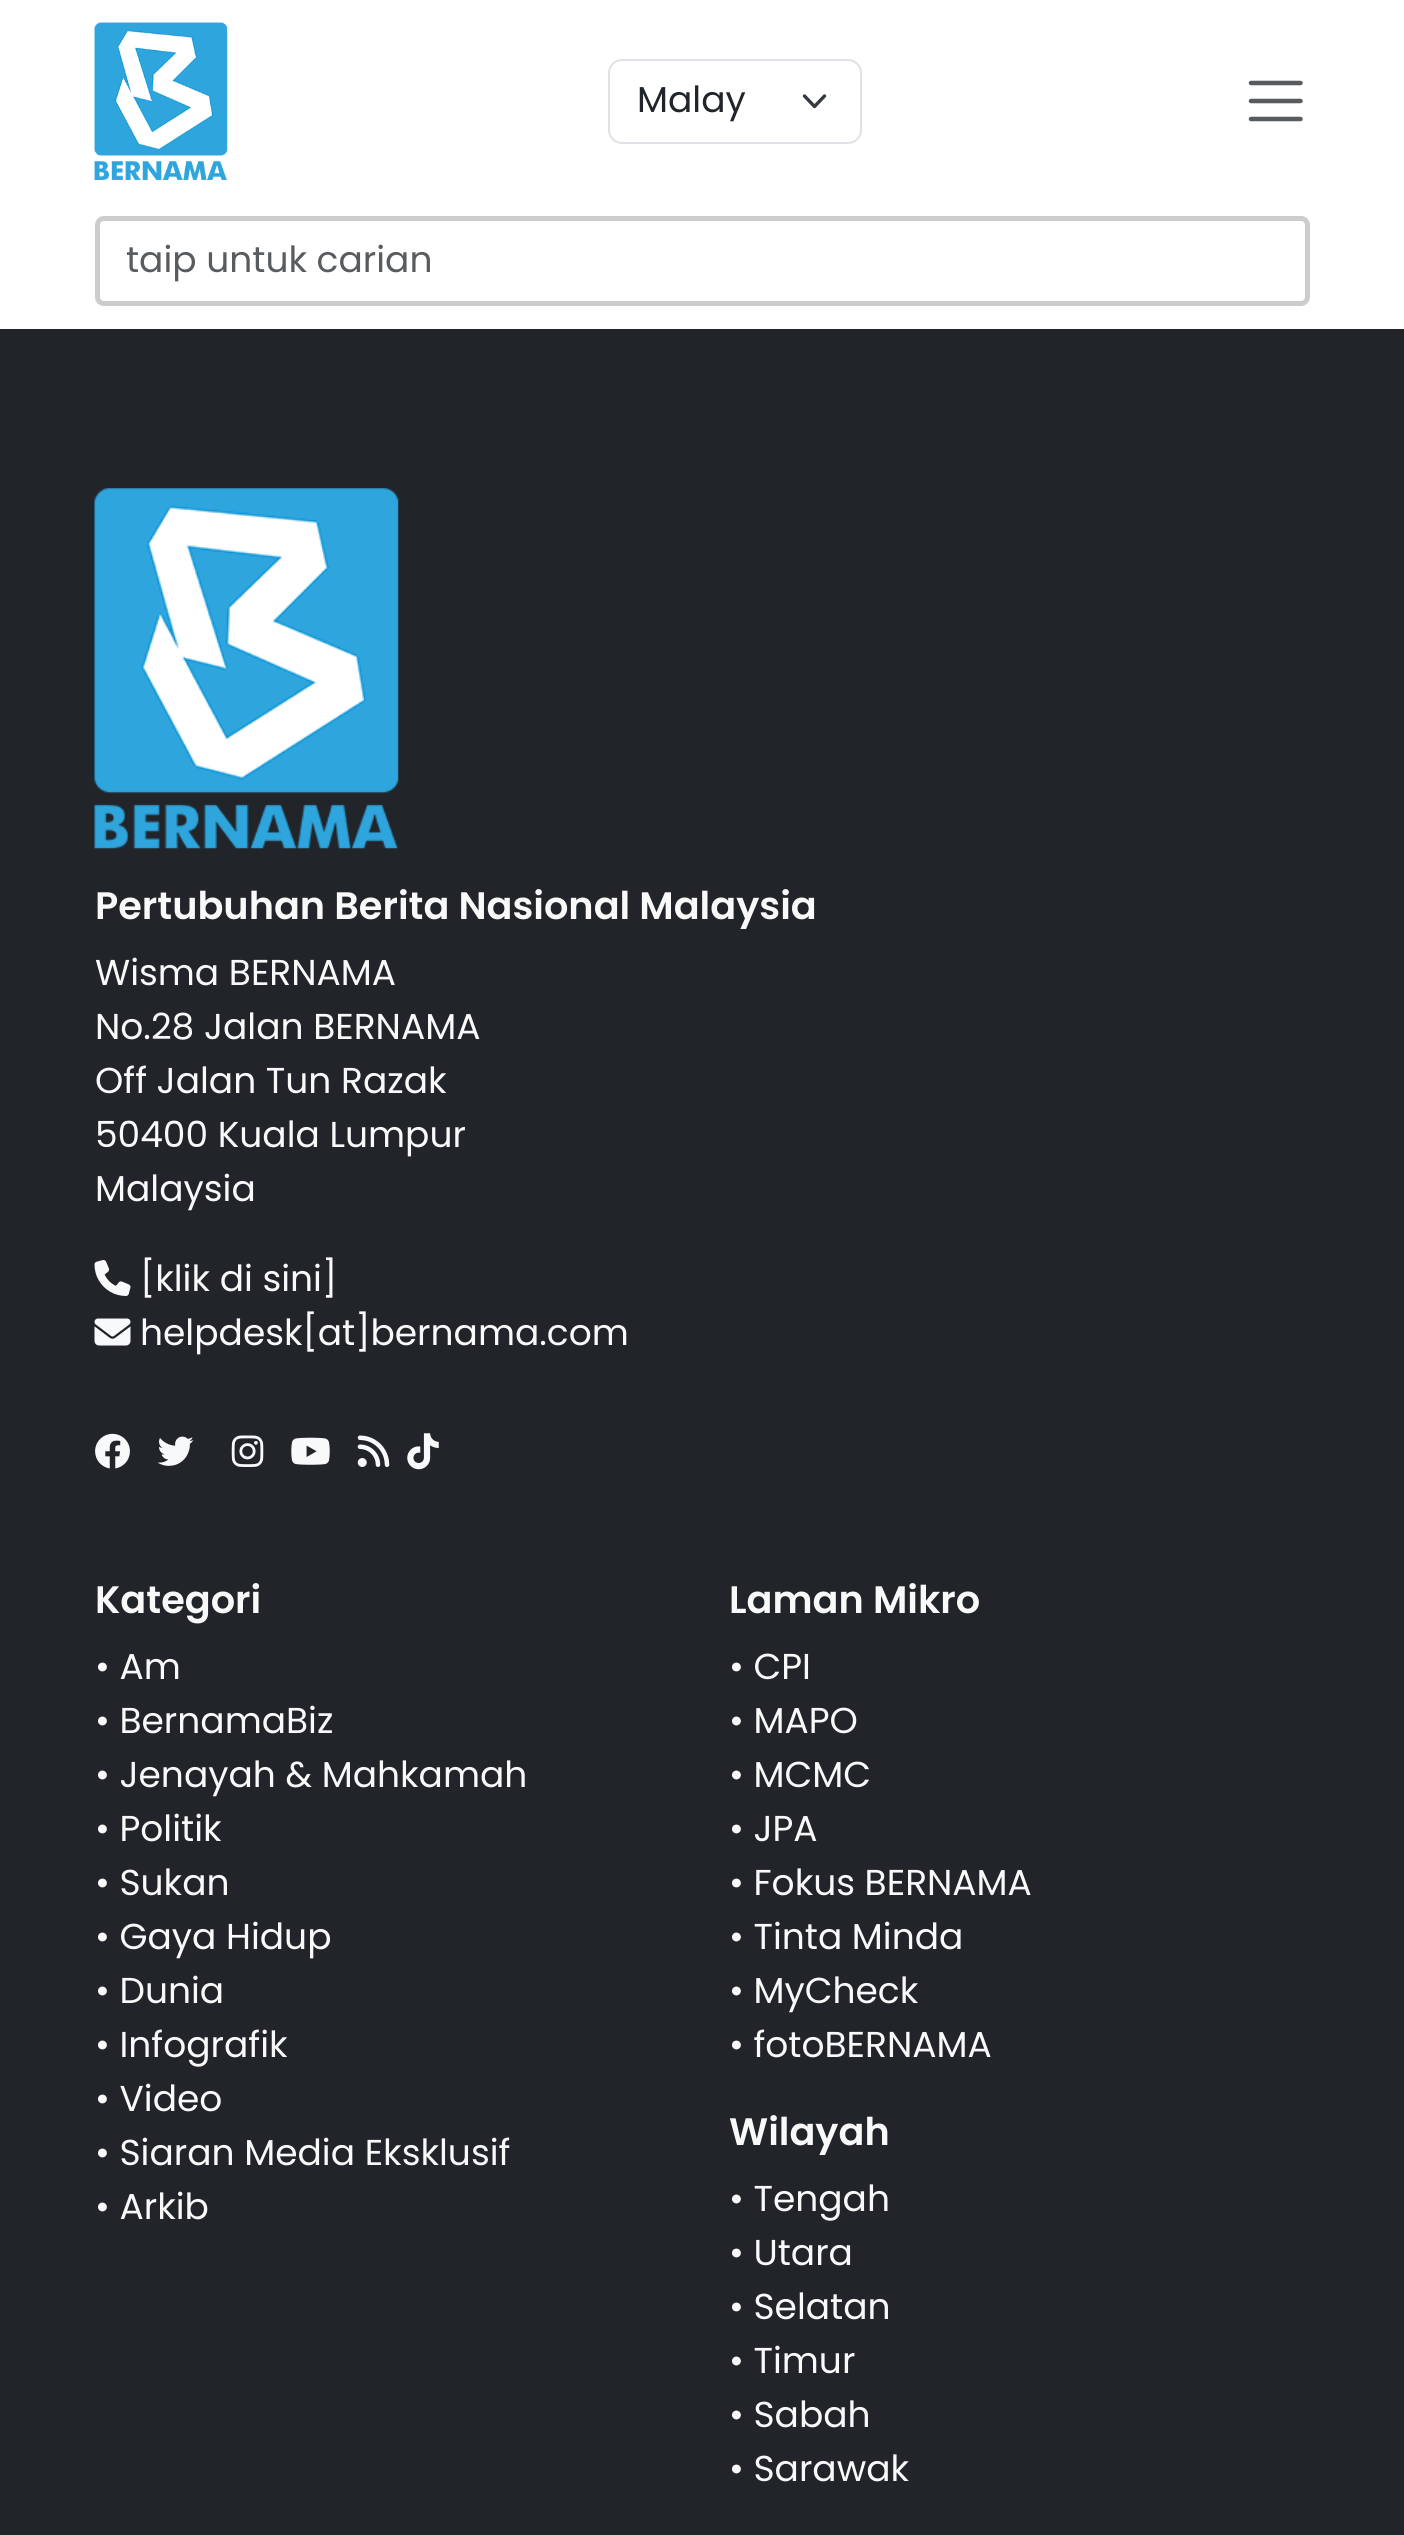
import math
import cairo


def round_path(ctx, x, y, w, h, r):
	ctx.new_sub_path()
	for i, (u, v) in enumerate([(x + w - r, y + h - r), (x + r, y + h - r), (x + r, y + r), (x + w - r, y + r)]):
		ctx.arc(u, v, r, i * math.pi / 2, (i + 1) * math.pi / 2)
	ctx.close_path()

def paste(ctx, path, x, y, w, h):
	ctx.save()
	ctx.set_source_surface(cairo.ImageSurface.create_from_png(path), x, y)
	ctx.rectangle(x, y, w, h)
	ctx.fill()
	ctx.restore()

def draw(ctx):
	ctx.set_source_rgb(0.129, 0.145, 0.161)
	ctx.paint()
	ctx.set_source_rgb(1, 1, 1)
	ctx.rectangle(0, 0, 1404, 329)
	ctx.fill()
	paste(ctx, 'media/1.png', 94, 22, 134, 158)
	ctx.new_path()
	ctx.move_to(804.5, 96)
	ctx.line_to(814.5, 106.5)
	ctx.line_to(824.5, 96)
	ctx.set_source_rgb(0.204, 0.227, 0.251)
	ctx.set_line_width(3.4)
	ctx.set_line_cap(cairo.LINE_CAP_ROUND)
	ctx.set_line_join(cairo.LINE_JOIN_ROUND)
	ctx.stroke()
	round_path(ctx, 609, 60, 252, 83, 13)
	ctx.set_source_rgb(0.871, 0.886, 0.902)
	ctx.set_line_width(2)
	ctx.set_line_cap(cairo.LINE_CAP_BUTT)
	ctx.set_line_join(cairo.LINE_JOIN_MITER)
	ctx.stroke()
	ctx.select_font_face('Poppins')
	ctx.set_font_size(36)
	ctx.set_source_rgb(0.129, 0.145, 0.161)
	ctx.move_to(637, 112)
	ctx.show_text('Malay')
	ctx.new_path()
	ctx.move_to(1251, 83)
	ctx.line_to(1300.5, 83)
	ctx.move_to(1251, 101)
	ctx.line_to(1300.5, 101)
	ctx.move_to(1251, 119)
	ctx.line_to(1300.5, 119)
	ctx.set_source_rgb(0.349, 0.361, 0.373)
	ctx.set_line_width(4.5)
	ctx.set_line_cap(cairo.LINE_CAP_ROUND)
	ctx.stroke()
	round_path(ctx, 97.5, 218.5, 1210, 85, 6.5)
	ctx.set_source_rgb(0.8, 0.8, 0.8)
	ctx.set_line_width(5)
	ctx.set_line_cap(cairo.LINE_CAP_BUTT)
	ctx.stroke()
	ctx.set_source_rgb(0.349, 0.361, 0.373)
	ctx.move_to(126, 272)
	ctx.show_text('taip untuk carian')
	paste(ctx, 'media/2.png', 94, 488, 305, 361)
	ctx.select_font_face('Poppins SemiBold')
	ctx.set_font_size(38.25)
	ctx.set_source_rgb(0.973, 0.976, 0.98)
	ctx.move_to(95, 919)
	ctx.show_text('Pertubuhan Berita Nasional Malaysia')
	ctx.select_font_face('Poppins')
	ctx.set_font_size(36)
	for x, y, s in [
		(95, 985, 'Wisma BERNAMA'),
		(95, 1039, 'No.28 Jalan BERNAMA'),
		(95, 1093, 'Off Jalan Tun Razak'),
		(95, 1147, '50400 Kuala Lumpur'),
		(95, 1201, 'Malaysia'),
	]:
		ctx.move_to(x, y)
		ctx.show_text(s)
	paste(ctx, 'media/3.png', 94, 1260, 37, 36)
	ctx.move_to(140, 1291)
	ctx.show_text('[klik di sini]')
	paste(ctx, 'media/4.png', 94, 1318, 37, 28)
	ctx.move_to(140, 1345)
	ctx.show_text('helpdesk[at]bernama.com')
	paste(ctx, 'media/5.png', 95, 1433, 35, 36)
	paste(ctx, 'media/6.png', 157, 1436, 37, 30)
	paste(ctx, 'media/7.png', 231, 1435, 33, 32)
	paste(ctx, 'media/8.png', 291, 1437, 39, 28)
	paste(ctx, 'media/9.png', 357, 1435, 33, 32)
	paste(ctx, 'media/10.png', 407, 1433, 32, 37)
	ctx.select_font_face('Poppins SemiBold')
	ctx.set_font_size(38.25)
	ctx.move_to(95, 1613)
	ctx.show_text('Kategori')
	ctx.select_font_face('Poppins')
	ctx.set_font_size(36)
	for x, y, s in [
		(95, 1679, '• Am'),
		(95, 1733, '• BernamaBiz'),
		(95, 1787, '• Jenayah & Mahkamah'),
		(95, 1841, '• Politik'),
		(95, 1895, '• Sukan'),
		(95, 1949, '• Gaya Hidup'),
		(95, 2003, '• Dunia'),
		(95, 2057, '• Infografik'),
		(95, 2111, '• Video'),
		(95, 2165, '• Siaran Media Eksklusif'),
		(95, 2219, '• Arkib'),
	]:
		ctx.move_to(x, y)
		ctx.show_text(s)
	ctx.select_font_face('Poppins SemiBold')
	ctx.set_font_size(38.25)
	ctx.move_to(729, 1613)
	ctx.show_text('Laman Mikro')
	ctx.select_font_face('Poppins')
	ctx.set_font_size(36)
	for x, y, s in [
		(729, 1679, '• CPI'),
		(729, 1733, '• MAPO'),
		(729, 1787, '• MCMC'),
		(729, 1841, '• JPA'),
		(729, 1895, '• Fokus BERNAMA'),
		(729, 1949, '• Tinta Minda'),
		(729, 2003, '• MyCheck'),
		(729, 2057, '• fotoBERNAMA'),
	]:
		ctx.move_to(x, y)
		ctx.show_text(s)
	ctx.select_font_face('Poppins SemiBold')
	ctx.set_font_size(38.25)
	ctx.move_to(729, 2145)
	ctx.show_text('Wilayah')
	ctx.select_font_face('Poppins')
	ctx.set_font_size(36)
	for x, y, s in [
		(729, 2211, '• Tengah'),
		(729, 2265, '• Utara'),
		(729, 2319, '• Selatan'),
		(729, 2373, '• Timur'),
		(729, 2427, '• Sabah'),
		(729, 2481, '• Sarawak'),
	]:
		ctx.move_to(x, y)
		ctx.show_text(s)


surface = cairo.ImageSurface(cairo.FORMAT_RGB24, 1404, 2535)
ctx = cairo.Context(surface)
options = cairo.FontOptions()
options.set_hint_metrics(cairo.HINT_METRICS_OFF)
options.set_hint_style(cairo.HINT_STYLE_NONE)
ctx.set_font_options(options)
ctx.set_miter_limit(4)
draw(ctx)
surface.write_to_png('image.png')
